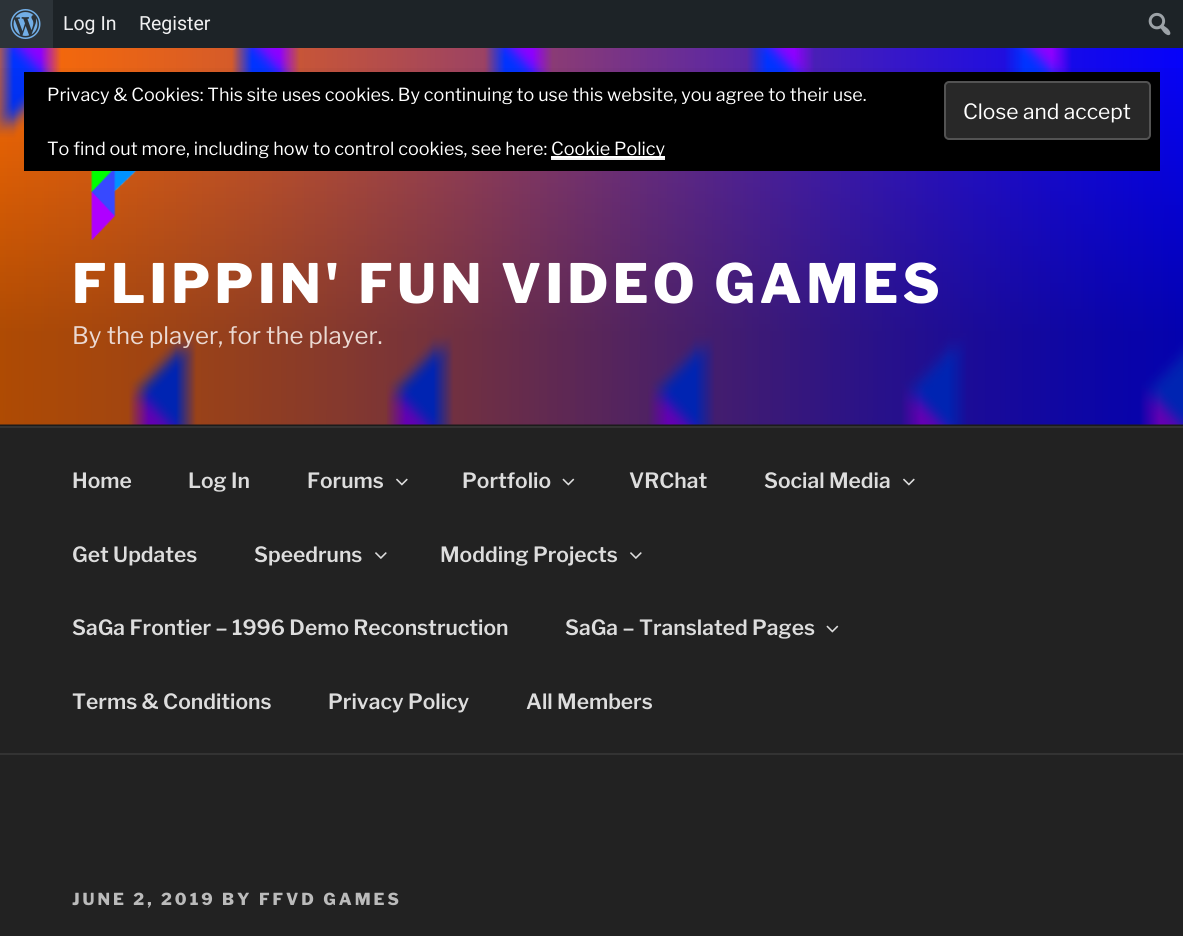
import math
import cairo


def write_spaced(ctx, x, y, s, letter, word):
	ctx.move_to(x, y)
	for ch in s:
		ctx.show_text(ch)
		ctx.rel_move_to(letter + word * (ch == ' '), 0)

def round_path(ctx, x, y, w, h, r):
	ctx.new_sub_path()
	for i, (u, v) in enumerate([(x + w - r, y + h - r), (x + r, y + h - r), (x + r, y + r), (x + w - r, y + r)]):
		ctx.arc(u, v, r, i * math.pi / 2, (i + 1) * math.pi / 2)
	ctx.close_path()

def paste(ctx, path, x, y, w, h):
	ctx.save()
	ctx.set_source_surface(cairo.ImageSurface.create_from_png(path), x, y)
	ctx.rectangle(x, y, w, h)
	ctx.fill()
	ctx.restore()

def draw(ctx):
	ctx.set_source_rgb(0.133, 0.133, 0.133)
	ctx.paint()
	ctx.set_source_rgb(0.114, 0.137, 0.153)
	ctx.rectangle(53, 0, 1130, 48)
	ctx.fill()
	ctx.set_source_rgb(0.173, 0.2, 0.22)
	ctx.rectangle(0, 0, 53, 48)
	ctx.fill()
	paste(ctx, 'media/1.png', 10, 9, 31, 30)
	ctx.select_font_face('Roboto')
	ctx.set_font_size(19.5)
	ctx.set_source_rgb(0.941, 0.941, 0.945)
	ctx.move_to(63, 30)
	ctx.show_text('Log In')
	ctx.move_to(139, 30)
	ctx.show_text('Register')
	paste(ctx, 'media/2.png', 1148, 12, 23, 24)
	ctx.set_source_rgb(0.149, 0.149, 0.149)
	ctx.rectangle(0, 424, 1183, 2)
	ctx.fill()
	paste(ctx, 'media/3.png', 0, 48, 1183, 377)
	gradient = cairo.LinearGradient(592, 48, 592, 426)
	gradient.add_color_stop_rgba(0, 0, 0, 0, 0)
	gradient.add_color_stop_rgba(0.75, 0, 0, 0, 0.3)
	gradient.add_color_stop_rgba(1, 0, 0, 0, 0.3)
	ctx.set_source(gradient)
	ctx.rectangle(0, 68, 1183, 358)
	ctx.fill()
	ctx.set_source_rgb(0, 0, 0)
	ctx.rectangle(24, 72, 1136, 99)
	ctx.fill()
	ctx.select_font_face('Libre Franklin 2 Thin')
	ctx.set_font_size(18)
	ctx.set_source_rgb(1, 1, 1)
	ctx.move_to(47, 101)
	ctx.show_text('Privacy & Cookies: This site uses cookies. By continuing to use this website, you agree to their use.')
	ctx.set_source_rgb(0.157, 0.157, 0.157)
	round_path(ctx, 945, 82, 205, 57, 4)
	ctx.fill_preserve()
	ctx.set_source_rgb(0.325, 0.325, 0.325)
	ctx.stroke()
	ctx.set_font_size(21)
	ctx.set_source_rgb(1, 1, 1)
	ctx.move_to(963, 119)
	ctx.show_text('Close and accept')
	ctx.set_font_size(18)
	ctx.move_to(47, 155)
	ctx.show_text('To find out more, including how to control cookies, see here:')
	ctx.rectangle(551, 156, 114, 2)
	ctx.fill()
	ctx.move_to(551, 155)
	ctx.show_text('Cookie Policy')
	ctx.set_source_rgb(0.941, 0.941, 0.941)
	ctx.rectangle(551, 158, 114, 2)
	ctx.fill()
	paste(ctx, 'media/4.png', 91, 171, 46, 69)
	ctx.select_font_face('Libre Franklin Thin')
	ctx.set_font_size(54)
	ctx.set_source_rgb(1, 1, 1)
	write_spaced(ctx, 72, 303, 'FLIPPIN\' FUN VIDEO GAMES', 4.3, 0)
	ctx.select_font_face('Libre Franklin 2 Thin')
	ctx.set_font_size(24)
	ctx.set_source_rgb(0.918, 0.851, 0.824)
	ctx.move_to(72, 344)
	ctx.show_text('By the player, for the player.')
	ctx.set_source_rgb(0.2, 0.2, 0.2)
	ctx.rectangle(0, 426, 1183, 2)
	ctx.fill()
	ctx.rectangle(0, 753, 1183, 2)
	ctx.fill()
	ctx.select_font_face('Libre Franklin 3 Thin')
	ctx.set_font_size(21)
	ctx.set_source_rgb(0.867, 0.867, 0.867)
	for x, y, s in [
		(72, 488, 'Home'),
		(188, 488, 'Log In'),
		(307, 488, 'Forums'),
	]:
		ctx.move_to(x, y)
		ctx.show_text(s)
	paste(ctx, 'media/5.png', 396, 478, 12, 8)
	ctx.move_to(462, 488)
	ctx.show_text('Portfolio')
	paste(ctx, 'media/6.png', 562, 478, 13, 8)
	ctx.move_to(629, 488)
	ctx.show_text('VRChat')
	ctx.move_to(764, 488)
	ctx.show_text('Social Media')
	paste(ctx, 'media/5.png', 903, 478, 12, 8)
	ctx.move_to(72, 562)
	ctx.show_text('Get Updates')
	ctx.move_to(254, 562)
	ctx.show_text('Speedruns')
	paste(ctx, 'media/7.png', 375, 552, 12, 7)
	ctx.move_to(440, 562)
	ctx.show_text('Modding Projects')
	paste(ctx, 'media/7.png', 630, 552, 12, 7)
	ctx.move_to(72, 635)
	ctx.show_text('SaGa Frontier – 1996 Demo Reconstruction')
	ctx.move_to(565, 635)
	ctx.show_text('SaGa – Translated Pages')
	paste(ctx, 'media/6.png', 826, 625, 13, 8)
	for x, y, s in [
		(72, 709, 'Terms & Conditions'),
		(328, 709, 'Privacy Policy'),
		(526, 709, 'All Members'),
	]:
		ctx.move_to(x, y)
		ctx.show_text(s)
	ctx.select_font_face('Libre Franklin Thin')
	ctx.set_font_size(16.5)
	ctx.set_source_rgb(0.733, 0.733, 0.733)
	write_spaced(ctx, 72, 905, 'JUNE 2, 2019 BY FFVD GAMES', 3, 0)


surface = cairo.ImageSurface(cairo.FORMAT_RGB24, 1183, 936)
ctx = cairo.Context(surface)
options = cairo.FontOptions()
options.set_hint_metrics(cairo.HINT_METRICS_OFF)
options.set_hint_style(cairo.HINT_STYLE_NONE)
ctx.set_font_options(options)
ctx.set_miter_limit(4)
draw(ctx)
surface.write_to_png('image.png')
